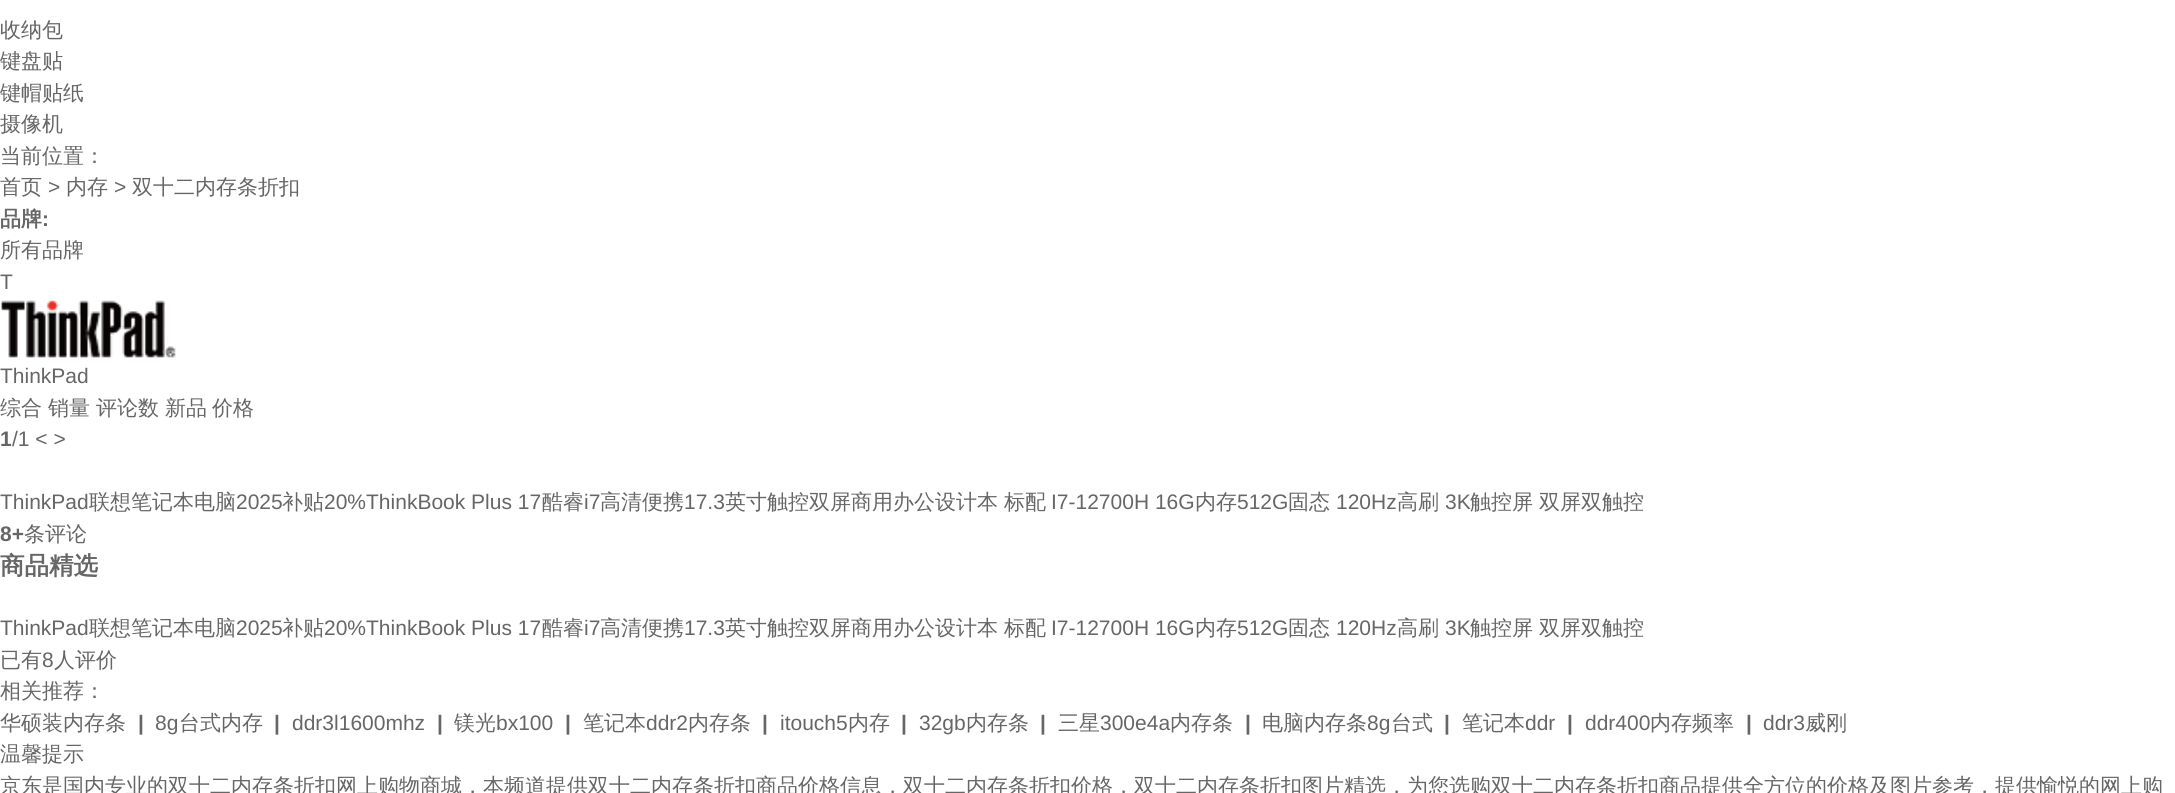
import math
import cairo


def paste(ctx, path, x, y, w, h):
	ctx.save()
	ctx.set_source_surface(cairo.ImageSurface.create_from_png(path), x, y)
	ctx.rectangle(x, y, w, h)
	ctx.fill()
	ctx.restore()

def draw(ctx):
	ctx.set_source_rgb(1, 1, 1)
	ctx.paint()
	ctx.select_font_face('WenQuanYi Zen Hei Medium')
	ctx.set_font_size(21)
	ctx.set_source_rgb(0.4, 0.4, 0.4)
	for x, y, s in [
		(0, 37, '收纳包'),
		(0, 68, '键盘贴'),
		(0, 100, '键帽贴纸'),
		(0, 131, '摄像机'),
		(0, 163, '当前位置：'),
		(0, 194, '首页'),
	]:
		ctx.move_to(x, y)
		ctx.show_text(s)
	ctx.select_font_face('Liberation Sans')
	ctx.move_to(48, 194)
	ctx.show_text('>')
	ctx.select_font_face('WenQuanYi Zen Hei Medium')
	ctx.move_to(66, 194)
	ctx.show_text('内存')
	ctx.select_font_face('Liberation Sans')
	ctx.move_to(114, 194)
	ctx.show_text('>')
	ctx.select_font_face('WenQuanYi Zen Hei Medium')
	ctx.move_to(132, 194)
	ctx.show_text('双十二内存条折扣')
	ctx.select_font_face('WenQuanYi Zen Hei', cairo.FONT_SLANT_NORMAL, cairo.FONT_WEIGHT_BOLD)
	ctx.move_to(0, 226)
	ctx.show_text('品牌')
	ctx.select_font_face('Liberation Sans', cairo.FONT_SLANT_NORMAL, cairo.FONT_WEIGHT_BOLD)
	ctx.move_to(42, 226)
	ctx.show_text(':')
	ctx.select_font_face('WenQuanYi Zen Hei Medium')
	ctx.move_to(0, 257)
	ctx.show_text('所有品牌')
	ctx.select_font_face('Liberation Sans')
	ctx.move_to(0, 289)
	ctx.show_text('T')
	paste(ctx, 'media/1.png', 1, 300, 175, 58)
	ctx.move_to(0, 383)
	ctx.show_text('ThinkPad')
	ctx.select_font_face('WenQuanYi Zen Hei Medium')
	for x, y, s in [
		(0, 415, '综合'),
		(48, 415, '销量'),
		(96, 415, '评论数'),
		(165, 415, '新品'),
		(212, 415, '价格'),
	]:
		ctx.move_to(x, y)
		ctx.show_text(s)
	ctx.select_font_face('Liberation Sans', cairo.FONT_SLANT_NORMAL, cairo.FONT_WEIGHT_BOLD)
	ctx.move_to(0, 446)
	ctx.show_text('1')
	ctx.select_font_face('Liberation Sans')
	ctx.move_to(12, 446)
	ctx.show_text('/1 < >')
	ctx.move_to(0, 509)
	ctx.show_text('ThinkPad')
	ctx.select_font_face('WenQuanYi Zen Hei Medium')
	ctx.move_to(89, 509)
	ctx.show_text('联想笔记本电脑')
	ctx.select_font_face('Liberation Sans')
	ctx.move_to(236, 509)
	ctx.show_text('2025')
	ctx.select_font_face('WenQuanYi Zen Hei Medium')
	ctx.move_to(282, 509)
	ctx.show_text('补贴')
	ctx.select_font_face('Liberation Sans')
	ctx.move_to(324, 509)
	ctx.show_text('20%ThinkBook Plus 17')
	ctx.select_font_face('WenQuanYi Zen Hei Medium')
	ctx.move_to(542, 509)
	ctx.show_text('酷睿')
	ctx.select_font_face('Liberation Sans')
	ctx.move_to(584, 509)
	ctx.show_text('i7')
	ctx.select_font_face('WenQuanYi Zen Hei Medium')
	ctx.move_to(600, 509)
	ctx.show_text('高清便携')
	ctx.select_font_face('Liberation Sans')
	ctx.move_to(684, 509)
	ctx.show_text('17.3')
	ctx.select_font_face('WenQuanYi Zen Hei Medium')
	ctx.move_to(725, 509)
	ctx.show_text('英寸触控双屏商用办公设计本')
	ctx.move_to(1004, 509)
	ctx.show_text('标配')
	ctx.select_font_face('Liberation Sans')
	ctx.move_to(1051, 509)
	ctx.show_text('I7-12700H 16G')
	ctx.select_font_face('WenQuanYi Zen Hei Medium')
	ctx.move_to(1195, 509)
	ctx.show_text('内存')
	ctx.select_font_face('Liberation Sans')
	ctx.move_to(1237, 509)
	ctx.show_text('512G')
	ctx.select_font_face('WenQuanYi Zen Hei Medium')
	ctx.move_to(1288, 509)
	ctx.show_text('固态')
	ctx.select_font_face('Liberation Sans')
	ctx.move_to(1336, 509)
	ctx.show_text('120Hz')
	ctx.select_font_face('WenQuanYi Zen Hei Medium')
	ctx.move_to(1397, 509)
	ctx.show_text('高刷')
	ctx.select_font_face('Liberation Sans')
	ctx.move_to(1445, 509)
	ctx.show_text('3K')
	ctx.select_font_face('WenQuanYi Zen Hei Medium')
	ctx.move_to(1470, 509)
	ctx.show_text('触控屏')
	ctx.move_to(1539, 509)
	ctx.show_text('双屏双触控')
	ctx.select_font_face('Liberation Sans', cairo.FONT_SLANT_NORMAL, cairo.FONT_WEIGHT_BOLD)
	ctx.move_to(0, 541)
	ctx.show_text('8+')
	ctx.select_font_face('WenQuanYi Zen Hei Medium')
	ctx.move_to(24, 541)
	ctx.show_text('条评论')
	ctx.select_font_face('WenQuanYi Zen Hei', cairo.FONT_SLANT_NORMAL, cairo.FONT_WEIGHT_BOLD)
	ctx.set_font_size(24.5)
	ctx.move_to(0, 574)
	ctx.show_text('商品精选')
	ctx.select_font_face('Liberation Sans')
	ctx.set_font_size(21)
	ctx.move_to(0, 635)
	ctx.show_text('ThinkPad')
	ctx.select_font_face('WenQuanYi Zen Hei Medium')
	ctx.move_to(89, 635)
	ctx.show_text('联想笔记本电脑')
	ctx.select_font_face('Liberation Sans')
	ctx.move_to(236, 635)
	ctx.show_text('2025')
	ctx.select_font_face('WenQuanYi Zen Hei Medium')
	ctx.move_to(282, 635)
	ctx.show_text('补贴')
	ctx.select_font_face('Liberation Sans')
	ctx.move_to(324, 635)
	ctx.show_text('20%ThinkBook Plus 17')
	ctx.select_font_face('WenQuanYi Zen Hei Medium')
	ctx.move_to(542, 635)
	ctx.show_text('酷睿')
	ctx.select_font_face('Liberation Sans')
	ctx.move_to(584, 635)
	ctx.show_text('i7')
	ctx.select_font_face('WenQuanYi Zen Hei Medium')
	ctx.move_to(600, 635)
	ctx.show_text('高清便携')
	ctx.select_font_face('Liberation Sans')
	ctx.move_to(684, 635)
	ctx.show_text('17.3')
	ctx.select_font_face('WenQuanYi Zen Hei Medium')
	ctx.move_to(725, 635)
	ctx.show_text('英寸触控双屏商用办公设计本')
	ctx.move_to(1004, 635)
	ctx.show_text('标配')
	ctx.select_font_face('Liberation Sans')
	ctx.move_to(1051, 635)
	ctx.show_text('I7-12700H 16G')
	ctx.select_font_face('WenQuanYi Zen Hei Medium')
	ctx.move_to(1195, 635)
	ctx.show_text('内存')
	ctx.select_font_face('Liberation Sans')
	ctx.move_to(1237, 635)
	ctx.show_text('512G')
	ctx.select_font_face('WenQuanYi Zen Hei Medium')
	ctx.move_to(1288, 635)
	ctx.show_text('固态')
	ctx.select_font_face('Liberation Sans')
	ctx.move_to(1336, 635)
	ctx.show_text('120Hz')
	ctx.select_font_face('WenQuanYi Zen Hei Medium')
	ctx.move_to(1397, 635)
	ctx.show_text('高刷')
	ctx.select_font_face('Liberation Sans')
	ctx.move_to(1445, 635)
	ctx.show_text('3K')
	ctx.select_font_face('WenQuanYi Zen Hei Medium')
	for x, y, s in [
		(1470, 635, '触控屏'),
		(1539, 635, '双屏双触控'),
		(0, 667, '已有'),
	]:
		ctx.move_to(x, y)
		ctx.show_text(s)
	ctx.select_font_face('Liberation Sans')
	ctx.move_to(42, 667)
	ctx.show_text('8')
	ctx.select_font_face('WenQuanYi Zen Hei Medium')
	for x, y, s in [
		(54, 667, '人评价'),
		(0, 698, '相关推荐：'),
		(0, 730, '华硕装内存条'),
	]:
		ctx.move_to(x, y)
		ctx.show_text(s)
	ctx.select_font_face('Liberation Sans', cairo.FONT_SLANT_NORMAL, cairo.FONT_WEIGHT_BOLD)
	ctx.move_to(138, 730)
	ctx.show_text('|')
	ctx.select_font_face('Liberation Sans')
	ctx.move_to(155, 730)
	ctx.show_text('8g')
	ctx.select_font_face('WenQuanYi Zen Hei Medium')
	ctx.move_to(179, 730)
	ctx.show_text('台式内存')
	ctx.select_font_face('Liberation Sans', cairo.FONT_SLANT_NORMAL, cairo.FONT_WEIGHT_BOLD)
	ctx.move_to(274, 730)
	ctx.show_text('|')
	ctx.select_font_face('Liberation Sans')
	ctx.move_to(292, 730)
	ctx.show_text('ddr3l1600mhz')
	ctx.select_font_face('Liberation Sans', cairo.FONT_SLANT_NORMAL, cairo.FONT_WEIGHT_BOLD)
	ctx.move_to(437, 730)
	ctx.show_text('|')
	ctx.select_font_face('WenQuanYi Zen Hei Medium')
	ctx.move_to(454, 730)
	ctx.show_text('镁光')
	ctx.select_font_face('Liberation Sans')
	ctx.move_to(496, 730)
	ctx.show_text('bx100')
	ctx.select_font_face('Liberation Sans', cairo.FONT_SLANT_NORMAL, cairo.FONT_WEIGHT_BOLD)
	ctx.move_to(565, 730)
	ctx.show_text('|')
	ctx.select_font_face('WenQuanYi Zen Hei Medium')
	ctx.move_to(583, 730)
	ctx.show_text('笔记本')
	ctx.select_font_face('Liberation Sans')
	ctx.move_to(646, 730)
	ctx.show_text('ddr2')
	ctx.select_font_face('WenQuanYi Zen Hei Medium')
	ctx.move_to(688, 730)
	ctx.show_text('内存条')
	ctx.select_font_face('Liberation Sans', cairo.FONT_SLANT_NORMAL, cairo.FONT_WEIGHT_BOLD)
	ctx.move_to(762, 730)
	ctx.show_text('|')
	ctx.select_font_face('Liberation Sans')
	ctx.move_to(780, 730)
	ctx.show_text('itouch5')
	ctx.select_font_face('WenQuanYi Zen Hei Medium')
	ctx.move_to(848, 730)
	ctx.show_text('内存')
	ctx.select_font_face('Liberation Sans', cairo.FONT_SLANT_NORMAL, cairo.FONT_WEIGHT_BOLD)
	ctx.move_to(901, 730)
	ctx.show_text('|')
	ctx.select_font_face('Liberation Sans')
	ctx.move_to(919, 730)
	ctx.show_text('32gb')
	ctx.select_font_face('WenQuanYi Zen Hei Medium')
	ctx.move_to(966, 730)
	ctx.show_text('内存条')
	ctx.select_font_face('Liberation Sans', cairo.FONT_SLANT_NORMAL, cairo.FONT_WEIGHT_BOLD)
	ctx.move_to(1040, 730)
	ctx.show_text('|')
	ctx.select_font_face('WenQuanYi Zen Hei Medium')
	ctx.move_to(1058, 730)
	ctx.show_text('三星')
	ctx.select_font_face('Liberation Sans')
	ctx.move_to(1100, 730)
	ctx.show_text('300e4a')
	ctx.select_font_face('WenQuanYi Zen Hei Medium')
	ctx.move_to(1170, 730)
	ctx.show_text('内存条')
	ctx.select_font_face('Liberation Sans', cairo.FONT_SLANT_NORMAL, cairo.FONT_WEIGHT_BOLD)
	ctx.move_to(1245, 730)
	ctx.show_text('|')
	ctx.select_font_face('WenQuanYi Zen Hei Medium')
	ctx.move_to(1262, 730)
	ctx.show_text('电脑内存条')
	ctx.select_font_face('Liberation Sans')
	ctx.move_to(1367, 730)
	ctx.show_text('8g')
	ctx.select_font_face('WenQuanYi Zen Hei Medium')
	ctx.move_to(1391, 730)
	ctx.show_text('台式')
	ctx.select_font_face('Liberation Sans', cairo.FONT_SLANT_NORMAL, cairo.FONT_WEIGHT_BOLD)
	ctx.move_to(1444, 730)
	ctx.show_text('|')
	ctx.select_font_face('WenQuanYi Zen Hei Medium')
	ctx.move_to(1462, 730)
	ctx.show_text('笔记本')
	ctx.select_font_face('Liberation Sans')
	ctx.move_to(1525, 730)
	ctx.show_text('ddr')
	ctx.select_font_face('Liberation Sans', cairo.FONT_SLANT_NORMAL, cairo.FONT_WEIGHT_BOLD)
	ctx.move_to(1567, 730)
	ctx.show_text('|')
	ctx.select_font_face('Liberation Sans')
	ctx.move_to(1585, 730)
	ctx.show_text('ddr400')
	ctx.select_font_face('WenQuanYi Zen Hei Medium')
	ctx.move_to(1650, 730)
	ctx.show_text('内存频率')
	ctx.select_font_face('Liberation Sans', cairo.FONT_SLANT_NORMAL, cairo.FONT_WEIGHT_BOLD)
	ctx.move_to(1746, 730)
	ctx.show_text('|')
	ctx.select_font_face('Liberation Sans')
	ctx.move_to(1763, 730)
	ctx.show_text('ddr3')
	ctx.select_font_face('WenQuanYi Zen Hei Medium')
	for x, y, s in [
		(1805, 730, '威刚'),
		(0, 761, '温馨提示'),
		(0, 793, '京东是国内专业的双十二内存条折扣网上购物商城，本频道提供双十二内存条折扣商品价格信息，双十二内存条折扣价格，双十二内存条折扣图片精选，为您选购双十二内存条折扣商品提供全方位的价格及图片参考，提供愉悦的网上购'),
	]:
		ctx.move_to(x, y)
		ctx.show_text(s)


surface = cairo.ImageSurface(cairo.FORMAT_RGB24, 2175, 793)
ctx = cairo.Context(surface)
options = cairo.FontOptions()
options.set_hint_metrics(cairo.HINT_METRICS_OFF)
options.set_hint_style(cairo.HINT_STYLE_NONE)
ctx.set_font_options(options)
ctx.set_miter_limit(4)
draw(ctx)
surface.write_to_png('image.png')
